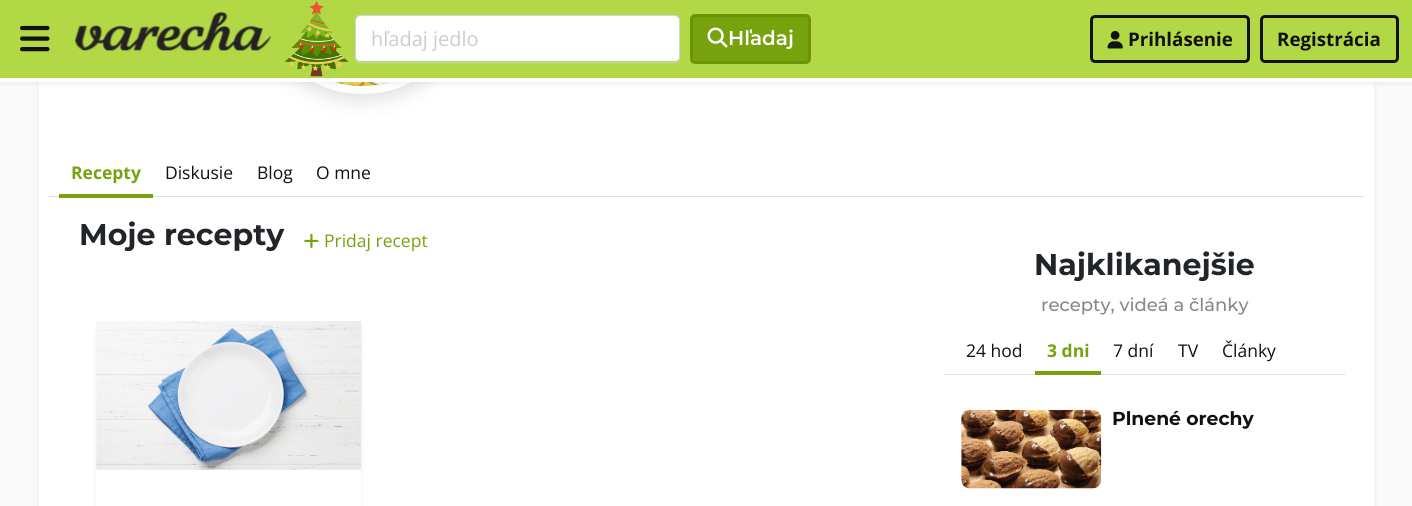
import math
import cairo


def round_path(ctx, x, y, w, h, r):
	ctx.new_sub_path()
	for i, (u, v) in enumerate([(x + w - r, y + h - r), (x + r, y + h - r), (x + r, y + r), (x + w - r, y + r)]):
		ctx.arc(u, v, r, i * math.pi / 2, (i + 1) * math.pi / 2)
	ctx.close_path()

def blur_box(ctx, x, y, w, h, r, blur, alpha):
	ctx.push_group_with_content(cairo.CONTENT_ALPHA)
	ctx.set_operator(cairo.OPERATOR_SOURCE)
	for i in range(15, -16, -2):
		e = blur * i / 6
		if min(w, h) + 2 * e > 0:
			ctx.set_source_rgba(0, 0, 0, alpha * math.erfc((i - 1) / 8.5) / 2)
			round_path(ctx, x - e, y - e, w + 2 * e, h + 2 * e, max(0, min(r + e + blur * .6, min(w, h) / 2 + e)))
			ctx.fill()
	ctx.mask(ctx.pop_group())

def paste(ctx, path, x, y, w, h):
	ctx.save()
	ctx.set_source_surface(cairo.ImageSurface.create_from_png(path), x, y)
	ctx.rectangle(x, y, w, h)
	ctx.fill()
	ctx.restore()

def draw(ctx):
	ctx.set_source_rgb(0.98, 0.98, 0.98)
	ctx.paint()
	ctx.set_source_rgb(0.8, 0.8, 0.8)
	blur_box(ctx, 39, -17, 1335, 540, 9, 2.5, 0.32)
	ctx.set_source_rgb(1, 1, 1)
	ctx.rectangle(39, 82, 1335, 424)
	ctx.fill()
	ctx.set_source_rgb(0.8, 0.8, 0.8)
	blur_box(ctx, 256, -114, 213, 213, 106.5, 10, 0.67)
	round_path(ctx, 260, -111, 205, 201, 102.5)
	ctx.set_source_rgb(1, 1, 1)
	ctx.set_line_width(8)
	ctx.stroke()
	paste(ctx, 'media/6.png', 334, 82, 57, 4)
	ctx.set_source_rgb(0.8, 0.8, 0.8)
	blur_box(ctx, 0, 3, 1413, 81, 0, 2.5, 0.32)
	ctx.set_source_rgb(0.702, 0.847, 0.275)
	ctx.rectangle(0, 0, 1412, 78)
	ctx.fill()
	ctx.set_source_rgb(1, 1, 1)
	ctx.rectangle(0, 78, 1412, 4)
	ctx.fill()
	paste(ctx, 'media/1.png', 20, 25, 30, 27)
	paste(ctx, 'media/2.png', 75, 11, 197, 40)
	paste(ctx, 'media/3.png', 285, 1, 63, 76)
	round_path(ctx, 356, 16, 323, 45, 4)
	ctx.fill()
	round_path(ctx, 355.5, 15.5, 324, 47, 4.5)
	ctx.set_source_rgb(0.808, 0.831, 0.855)
	ctx.set_line_width(1)
	ctx.stroke()
	ctx.select_font_face('Open Sans')
	ctx.set_font_size(20)
	ctx.set_source_rgb(0.8, 0.8, 0.8)
	ctx.move_to(371, 46)
	ctx.show_text('hľadaj jedlo')
	ctx.set_source_rgb(0.463, 0.635, 0.055)
	round_path(ctx, 691.5, 15.5, 118, 47, 3.5)
	ctx.fill_preserve()
	ctx.set_source_rgb(0.427, 0.58, 0.039)
	ctx.set_line_width(3)
	ctx.stroke()
	paste(ctx, 'media/4.png', 707, 27, 21, 21)
	ctx.select_font_face('Montserrat SemiBold')
	ctx.set_source_rgb(1, 1, 1)
	ctx.move_to(728, 45)
	ctx.show_text('Hľadaj')
	round_path(ctx, 1091.5, 16.5, 157, 45, 3.5)
	ctx.set_source_rgb(0.067, 0.067, 0.067)
	ctx.stroke()
	paste(ctx, 'media/5.png', 1107, 30, 16, 19)
	ctx.select_font_face('Open Sans', cairo.FONT_SLANT_NORMAL, cairo.FONT_WEIGHT_BOLD)
	ctx.set_font_size(18.75)
	ctx.move_to(1128, 46)
	ctx.show_text('Prihlásenie')
	round_path(ctx, 1261.5, 16.5, 136, 45, 3.5)
	ctx.stroke()
	ctx.move_to(1277, 46)
	ctx.show_text('Registrácia')
	ctx.set_source_rgb(0.871, 0.886, 0.902)
	ctx.rectangle(49, 196, 1315, 1)
	ctx.fill()
	ctx.set_source_rgb(1, 1, 1)
	ctx.new_path()
	ctx.move_to(64, 151)
	ctx.line_to(148, 151)
	ctx.curve_to(151, 151, 153, 153, 153, 156)
	ctx.line_to(153, 198)
	ctx.line_to(59, 198)
	ctx.line_to(59, 156)
	ctx.curve_to(59, 153, 61, 151, 64, 151)
	ctx.close_path()
	ctx.fill()
	ctx.set_source_rgb(0.463, 0.635, 0.055)
	ctx.rectangle(59, 194, 94, 4)
	ctx.fill()
	ctx.set_font_size(17.5)
	ctx.move_to(71, 179)
	ctx.show_text('Recepty')
	ctx.select_font_face('Open Sans')
	ctx.set_source_rgb(0.067, 0.067, 0.067)
	for x, y, s in [
		(165, 179, 'Diskusie'),
		(257, 179, 'Blog'),
		(316, 179, 'O mne'),
	]:
		ctx.move_to(x, y)
		ctx.show_text(s)
	ctx.select_font_face('Montserrat', cairo.FONT_SLANT_NORMAL, cairo.FONT_WEIGHT_BOLD)
	ctx.set_font_size(30)
	ctx.set_source_rgb(0.129, 0.145, 0.161)
	ctx.move_to(79, 245)
	ctx.show_text('Moje recepty')
	paste(ctx, 'media/7.png', 304, 233, 15, 15)
	ctx.select_font_face('Open Sans')
	ctx.set_font_size(17.5)
	ctx.set_source_rgb(0.463, 0.635, 0.055)
	ctx.move_to(324, 247)
	ctx.show_text('Pridaj recept')
	ctx.set_source_rgb(0.8, 0.8, 0.8)
	blur_box(ctx, 96, 324, 265, 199, 9, 2.5, 0.32)
	ctx.set_source_rgb(1, 1, 1)
	round_path(ctx, 96, 321, 265, 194, 9)
	ctx.fill()
	paste(ctx, 'media/8.png', 96, 321, 266, 149)
	ctx.select_font_face('Montserrat', cairo.FONT_SLANT_NORMAL, cairo.FONT_WEIGHT_BOLD)
	ctx.set_font_size(30)
	ctx.set_source_rgb(0.129, 0.145, 0.161)
	ctx.move_to(1034, 275)
	ctx.show_text('Najklikanejšie')
	ctx.select_font_face('Montserrat Medium')
	ctx.set_font_size(18)
	ctx.set_source_rgb(0.533, 0.533, 0.533)
	ctx.move_to(1041, 311)
	ctx.show_text('recepty, videá a články')
	ctx.set_source_rgb(0.871, 0.886, 0.902)
	ctx.rectangle(944, 374, 401, 1)
	ctx.fill()
	ctx.select_font_face('Open Sans')
	ctx.set_font_size(17.5)
	ctx.set_source_rgb(0.067, 0.067, 0.067)
	ctx.move_to(966, 357)
	ctx.show_text('24 hod')
	ctx.set_source_rgb(1, 1, 1)
	ctx.new_path()
	ctx.move_to(1040, 329)
	ctx.line_to(1096, 329)
	ctx.curve_to(1099, 329, 1101, 331, 1101, 334)
	ctx.line_to(1101, 375)
	ctx.line_to(1035, 375)
	ctx.line_to(1035, 334)
	ctx.curve_to(1035, 331, 1037, 329, 1040, 329)
	ctx.close_path()
	ctx.fill()
	ctx.set_source_rgb(0.463, 0.635, 0.055)
	ctx.rectangle(1035, 371, 66, 4)
	ctx.fill()
	ctx.select_font_face('Open Sans', cairo.FONT_SLANT_NORMAL, cairo.FONT_WEIGHT_BOLD)
	ctx.move_to(1047, 357)
	ctx.show_text('3 dni')
	ctx.select_font_face('Open Sans')
	ctx.set_source_rgb(0.067, 0.067, 0.067)
	for x, y, s in [
		(1113, 357, '7 dní'),
		(1178, 357, 'TV'),
		(1222, 357, 'Články'),
	]:
		ctx.move_to(x, y)
		ctx.show_text(s)
	paste(ctx, 'media/9.png', 961, 409, 141, 80)
	ctx.select_font_face('Montserrat', cairo.FONT_SLANT_NORMAL, cairo.FONT_WEIGHT_BOLD)
	ctx.set_font_size(18.75)
	ctx.move_to(1112, 425)
	ctx.show_text('Plnené orechy')


surface = cairo.ImageSurface(cairo.FORMAT_RGB24, 1412, 506)
ctx = cairo.Context(surface)
options = cairo.FontOptions()
options.set_hint_metrics(cairo.HINT_METRICS_OFF)
options.set_hint_style(cairo.HINT_STYLE_NONE)
ctx.set_font_options(options)
ctx.set_miter_limit(4)
draw(ctx)
surface.write_to_png('image.png')
